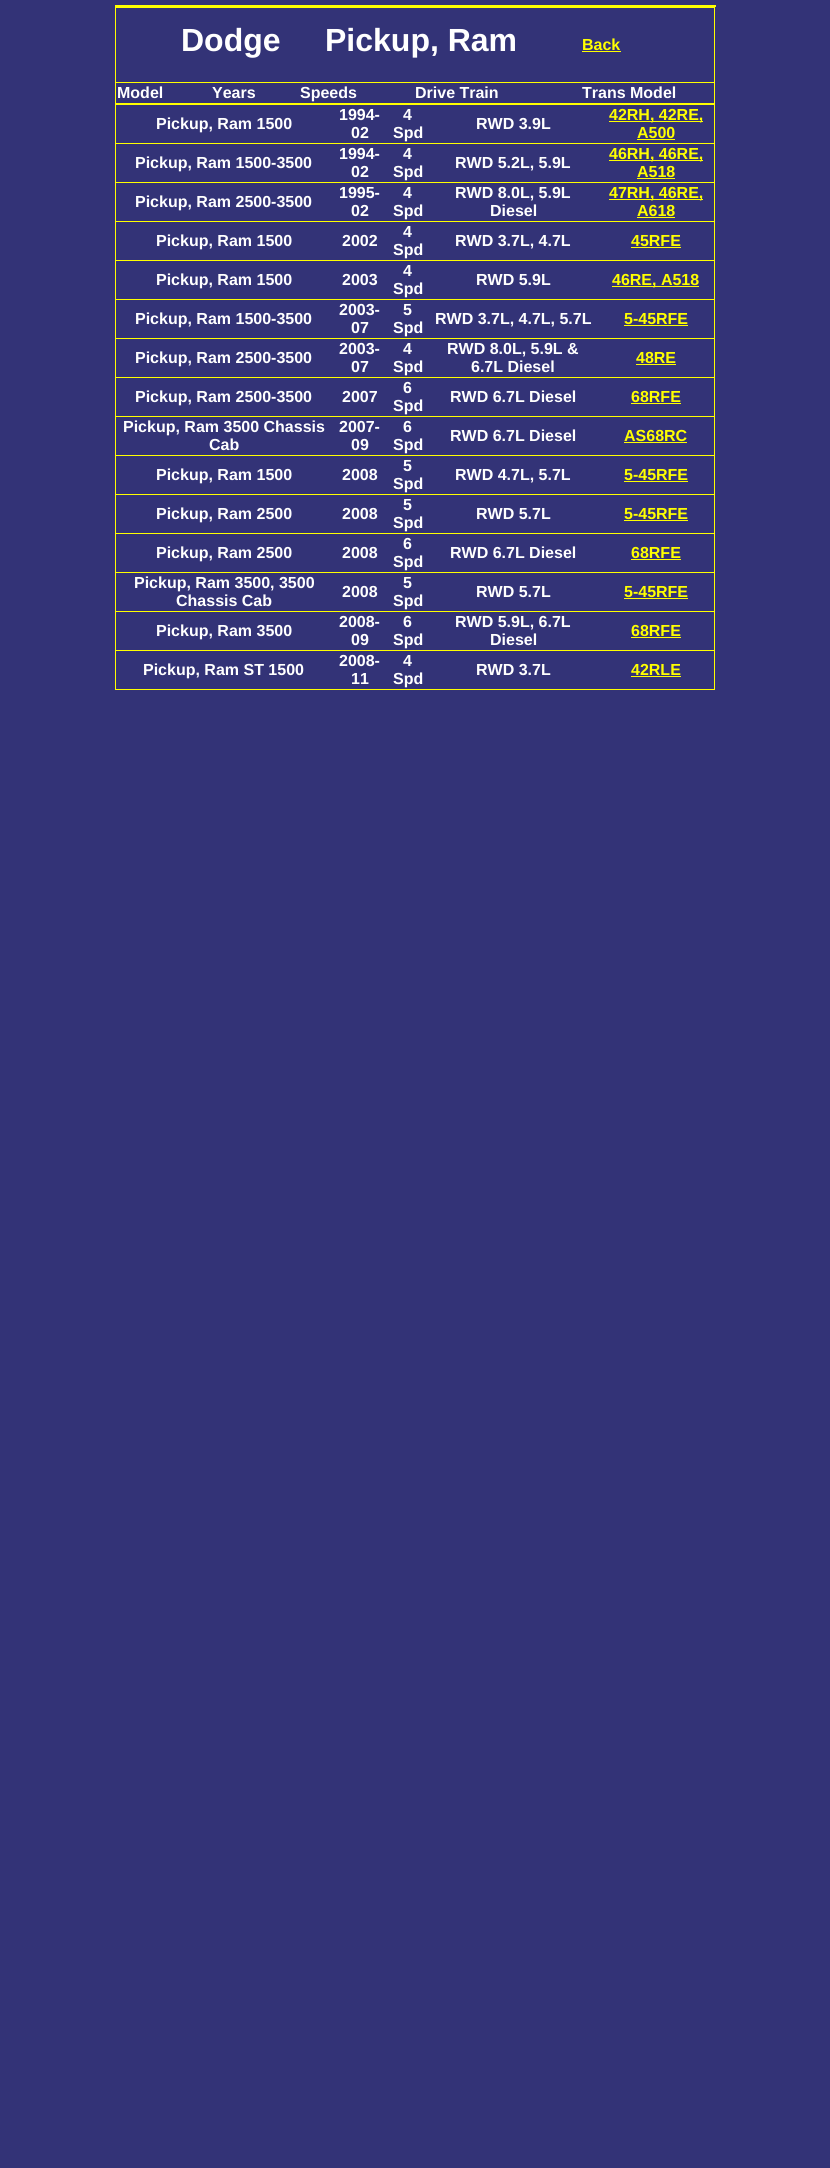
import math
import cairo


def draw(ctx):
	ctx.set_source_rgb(0.2, 0.2, 0.467)
	ctx.paint()
	ctx.set_source_rgb(1, 1, 0)
	ctx.rectangle(115, 5, 601, 2)
	ctx.rectangle(115, 7, 600, 1)
	ctx.rectangle(714, 7, 1, 97)
	ctx.rectangle(115, 103, 600, 2)
	ctx.rectangle(115, 7, 1, 97)
	ctx.fill()
	ctx.select_font_face('Liberation Sans', cairo.FONT_SLANT_NORMAL, cairo.FONT_WEIGHT_BOLD)
	ctx.set_font_size(32)
	ctx.set_source_rgb(1, 1, 1)
	ctx.move_to(181, 51)
	ctx.show_text('Dodge     Pickup, Ram')
	ctx.set_font_size(16)
	ctx.set_source_rgb(1, 1, 0)
	ctx.move_to(582, 50)
	ctx.show_text('Back')
	ctx.rectangle(582, 51, 39, 1)
	ctx.fill()
	ctx.set_source_rgb(1, 1, 1)
	for x, y, s in [
		(117, 98, 'Model'),
		(212, 98, 'Years'),
		(300, 98, 'Speeds'),
		(415, 98, 'Drive Train'),
	]:
		ctx.move_to(x, y)
		ctx.show_text(s)
	ctx.set_source_rgb(1, 1, 0)
	ctx.rectangle(115, 82, 600, 1)
	ctx.fill()
	ctx.set_source_rgb(1, 1, 1)
	ctx.move_to(582, 98)
	ctx.show_text('Trans Model')
	ctx.set_source_rgb(1, 1, 0)
	ctx.rectangle(714, 104, 1, 586)
	ctx.rectangle(115, 689, 600, 1)
	ctx.rectangle(115, 104, 1, 586)
	ctx.fill()
	ctx.set_source_rgb(1, 1, 1)
	for x, y, s in [
		(156, 129, 'Pickup, Ram 1500'),
		(339, 120, '1994-'),
		(351, 138, '02'),
		(403, 120, '4'),
		(393, 138, 'Spd'),
		(476, 129, 'RWD 3.9L'),
	]:
		ctx.move_to(x, y)
		ctx.show_text(s)
	ctx.set_source_rgb(1, 1, 0)
	ctx.rectangle(609, 121, 94, 1)
	ctx.fill()
	ctx.move_to(609, 120)
	ctx.show_text('42RH, 42RE,')
	ctx.move_to(637, 138)
	ctx.show_text('A500')
	ctx.rectangle(637, 139, 38, 1)
	ctx.fill()
	ctx.set_source_rgb(1, 1, 1)
	for x, y, s in [
		(135, 168, 'Pickup, Ram 1500-3500'),
		(339, 159, '1994-'),
		(351, 177, '02'),
		(403, 159, '4'),
		(393, 177, 'Spd'),
		(455, 168, 'RWD 5.2L, 5.9L'),
	]:
		ctx.move_to(x, y)
		ctx.show_text(s)
	ctx.set_source_rgb(1, 1, 0)
	ctx.rectangle(115, 143, 600, 1)
	ctx.fill()
	ctx.rectangle(609, 160, 94, 1)
	ctx.fill()
	ctx.move_to(609, 159)
	ctx.show_text('46RH, 46RE,')
	ctx.move_to(637, 177)
	ctx.show_text('A518')
	ctx.rectangle(637, 178, 38, 1)
	ctx.fill()
	ctx.set_source_rgb(1, 1, 1)
	for x, y, s in [
		(135, 207, 'Pickup, Ram 2500-3500'),
		(339, 198, '1995-'),
		(351, 216, '02'),
		(403, 198, '4'),
		(393, 216, 'Spd'),
		(455, 198, 'RWD 8.0L, 5.9L'),
		(490, 216, 'Diesel'),
	]:
		ctx.move_to(x, y)
		ctx.show_text(s)
	ctx.set_source_rgb(1, 1, 0)
	ctx.rectangle(115, 182, 600, 1)
	ctx.fill()
	ctx.rectangle(609, 199, 94, 1)
	ctx.fill()
	ctx.move_to(609, 198)
	ctx.show_text('47RH, 46RE,')
	ctx.move_to(637, 216)
	ctx.show_text('A618')
	ctx.rectangle(637, 217, 38, 1)
	ctx.fill()
	ctx.set_source_rgb(1, 1, 1)
	for x, y, s in [
		(156, 246, 'Pickup, Ram 1500'),
		(342, 246, '2002'),
		(403, 237, '4'),
		(393, 255, 'Spd'),
		(455, 246, 'RWD 3.7L, 4.7L'),
	]:
		ctx.move_to(x, y)
		ctx.show_text(s)
	ctx.set_source_rgb(1, 1, 0)
	ctx.rectangle(115, 221, 600, 1)
	ctx.fill()
	ctx.move_to(631, 246)
	ctx.show_text('45RFE')
	ctx.rectangle(631, 247, 50, 1)
	ctx.fill()
	ctx.set_source_rgb(1, 1, 1)
	for x, y, s in [
		(156, 285, 'Pickup, Ram 1500'),
		(342, 285, '2003'),
		(403, 276, '4'),
		(393, 294, 'Spd'),
		(476, 285, 'RWD 5.9L'),
	]:
		ctx.move_to(x, y)
		ctx.show_text(s)
	ctx.set_source_rgb(1, 1, 0)
	ctx.rectangle(115, 260, 600, 1)
	ctx.fill()
	ctx.rectangle(612, 286, 87, 1)
	ctx.fill()
	ctx.move_to(612, 285)
	ctx.show_text('46RE, A518')
	ctx.set_source_rgb(1, 1, 1)
	for x, y, s in [
		(135, 324, 'Pickup, Ram 1500-3500'),
		(339, 315, '2003-'),
		(351, 333, '07'),
		(403, 315, '5'),
		(393, 333, 'Spd'),
		(435, 324, 'RWD 3.7L, 4.7L, 5.7L'),
	]:
		ctx.move_to(x, y)
		ctx.show_text(s)
	ctx.set_source_rgb(1, 1, 0)
	ctx.rectangle(115, 299, 600, 1)
	ctx.fill()
	ctx.move_to(624, 324)
	ctx.show_text('5-45RFE')
	ctx.rectangle(624, 325, 64, 1)
	ctx.fill()
	ctx.set_source_rgb(1, 1, 1)
	for x, y, s in [
		(135, 363, 'Pickup, Ram 2500-3500'),
		(339, 354, '2003-'),
		(351, 372, '07'),
		(403, 354, '4'),
		(393, 372, 'Spd'),
		(447, 354, 'RWD 8.0L, 5.9L &'),
		(471, 372, '6.7L Diesel'),
	]:
		ctx.move_to(x, y)
		ctx.show_text(s)
	ctx.set_source_rgb(1, 1, 0)
	ctx.rectangle(115, 338, 600, 1)
	ctx.fill()
	ctx.move_to(636, 363)
	ctx.show_text('48RE')
	ctx.rectangle(636, 364, 40, 1)
	ctx.fill()
	ctx.set_source_rgb(1, 1, 1)
	for x, y, s in [
		(135, 402, 'Pickup, Ram 2500-3500'),
		(342, 402, '2007'),
		(403, 393, '6'),
		(393, 411, 'Spd'),
		(450, 402, 'RWD 6.7L Diesel'),
	]:
		ctx.move_to(x, y)
		ctx.show_text(s)
	ctx.set_source_rgb(1, 1, 0)
	ctx.rectangle(115, 377, 600, 1)
	ctx.fill()
	ctx.move_to(631, 402)
	ctx.show_text('68RFE')
	ctx.rectangle(631, 403, 50, 1)
	ctx.fill()
	ctx.set_source_rgb(1, 1, 1)
	for x, y, s in [
		(123, 432, 'Pickup, Ram 3500 Chassis'),
		(209, 450, 'Cab'),
		(339, 432, '2007-'),
		(351, 450, '09'),
		(403, 432, '6'),
		(393, 450, 'Spd'),
		(450, 441, 'RWD 6.7L Diesel'),
	]:
		ctx.move_to(x, y)
		ctx.show_text(s)
	ctx.set_source_rgb(1, 1, 0)
	ctx.rectangle(115, 416, 600, 1)
	ctx.fill()
	ctx.move_to(624, 441)
	ctx.show_text('AS68RC')
	ctx.rectangle(624, 442, 63, 1)
	ctx.fill()
	ctx.set_source_rgb(1, 1, 1)
	for x, y, s in [
		(156, 480, 'Pickup, Ram 1500'),
		(342, 480, '2008'),
		(403, 471, '5'),
		(393, 489, 'Spd'),
		(455, 480, 'RWD 4.7L, 5.7L'),
	]:
		ctx.move_to(x, y)
		ctx.show_text(s)
	ctx.set_source_rgb(1, 1, 0)
	ctx.rectangle(115, 455, 600, 1)
	ctx.fill()
	ctx.move_to(624, 480)
	ctx.show_text('5-45RFE')
	ctx.rectangle(624, 481, 64, 1)
	ctx.fill()
	ctx.set_source_rgb(1, 1, 1)
	for x, y, s in [
		(156, 519, 'Pickup, Ram 2500'),
		(342, 519, '2008'),
		(403, 510, '5'),
		(393, 528, 'Spd'),
		(476, 519, 'RWD 5.7L'),
	]:
		ctx.move_to(x, y)
		ctx.show_text(s)
	ctx.set_source_rgb(1, 1, 0)
	ctx.rectangle(115, 494, 600, 1)
	ctx.fill()
	ctx.move_to(624, 519)
	ctx.show_text('5-45RFE')
	ctx.rectangle(624, 520, 64, 1)
	ctx.fill()
	ctx.set_source_rgb(1, 1, 1)
	for x, y, s in [
		(156, 558, 'Pickup, Ram 2500'),
		(342, 558, '2008'),
		(403, 549, '6'),
		(393, 567, 'Spd'),
		(450, 558, 'RWD 6.7L Diesel'),
	]:
		ctx.move_to(x, y)
		ctx.show_text(s)
	ctx.set_source_rgb(1, 1, 0)
	ctx.rectangle(115, 533, 600, 1)
	ctx.fill()
	ctx.move_to(631, 558)
	ctx.show_text('68RFE')
	ctx.rectangle(631, 559, 50, 1)
	ctx.fill()
	ctx.set_source_rgb(1, 1, 1)
	for x, y, s in [
		(134, 588, 'Pickup, Ram 3500, 3500'),
		(176, 606, 'Chassis Cab'),
		(342, 597, '2008'),
		(403, 588, '5'),
		(393, 606, 'Spd'),
		(476, 597, 'RWD 5.7L'),
	]:
		ctx.move_to(x, y)
		ctx.show_text(s)
	ctx.set_source_rgb(1, 1, 0)
	ctx.rectangle(115, 572, 600, 1)
	ctx.fill()
	ctx.move_to(624, 597)
	ctx.show_text('5-45RFE')
	ctx.rectangle(624, 598, 64, 1)
	ctx.fill()
	ctx.set_source_rgb(1, 1, 1)
	for x, y, s in [
		(156, 636, 'Pickup, Ram 3500'),
		(339, 627, '2008-'),
		(351, 645, '09'),
		(403, 627, '6'),
		(393, 645, 'Spd'),
		(455, 627, 'RWD 5.9L, 6.7L'),
		(490, 645, 'Diesel'),
	]:
		ctx.move_to(x, y)
		ctx.show_text(s)
	ctx.set_source_rgb(1, 1, 0)
	ctx.rectangle(115, 611, 600, 1)
	ctx.fill()
	ctx.move_to(631, 636)
	ctx.show_text('68RFE')
	ctx.rectangle(631, 637, 50, 1)
	ctx.fill()
	ctx.set_source_rgb(1, 1, 1)
	for x, y, s in [
		(143, 675, 'Pickup, Ram ST 1500'),
		(339, 666, '2008-'),
		(351, 684, '11'),
		(403, 666, '4'),
		(393, 684, 'Spd'),
		(476, 675, 'RWD 3.7L'),
	]:
		ctx.move_to(x, y)
		ctx.show_text(s)
	ctx.set_source_rgb(1, 1, 0)
	ctx.rectangle(115, 650, 600, 1)
	ctx.fill()
	ctx.move_to(631, 675)
	ctx.show_text('42RLE')
	ctx.rectangle(631, 676, 50, 1)
	ctx.fill()


surface = cairo.ImageSurface(cairo.FORMAT_RGB24, 830, 2168)
ctx = cairo.Context(surface)
options = cairo.FontOptions()
options.set_hint_metrics(cairo.HINT_METRICS_OFF)
options.set_hint_style(cairo.HINT_STYLE_NONE)
ctx.set_font_options(options)
ctx.set_miter_limit(4)
draw(ctx)
surface.write_to_png('image.png')
